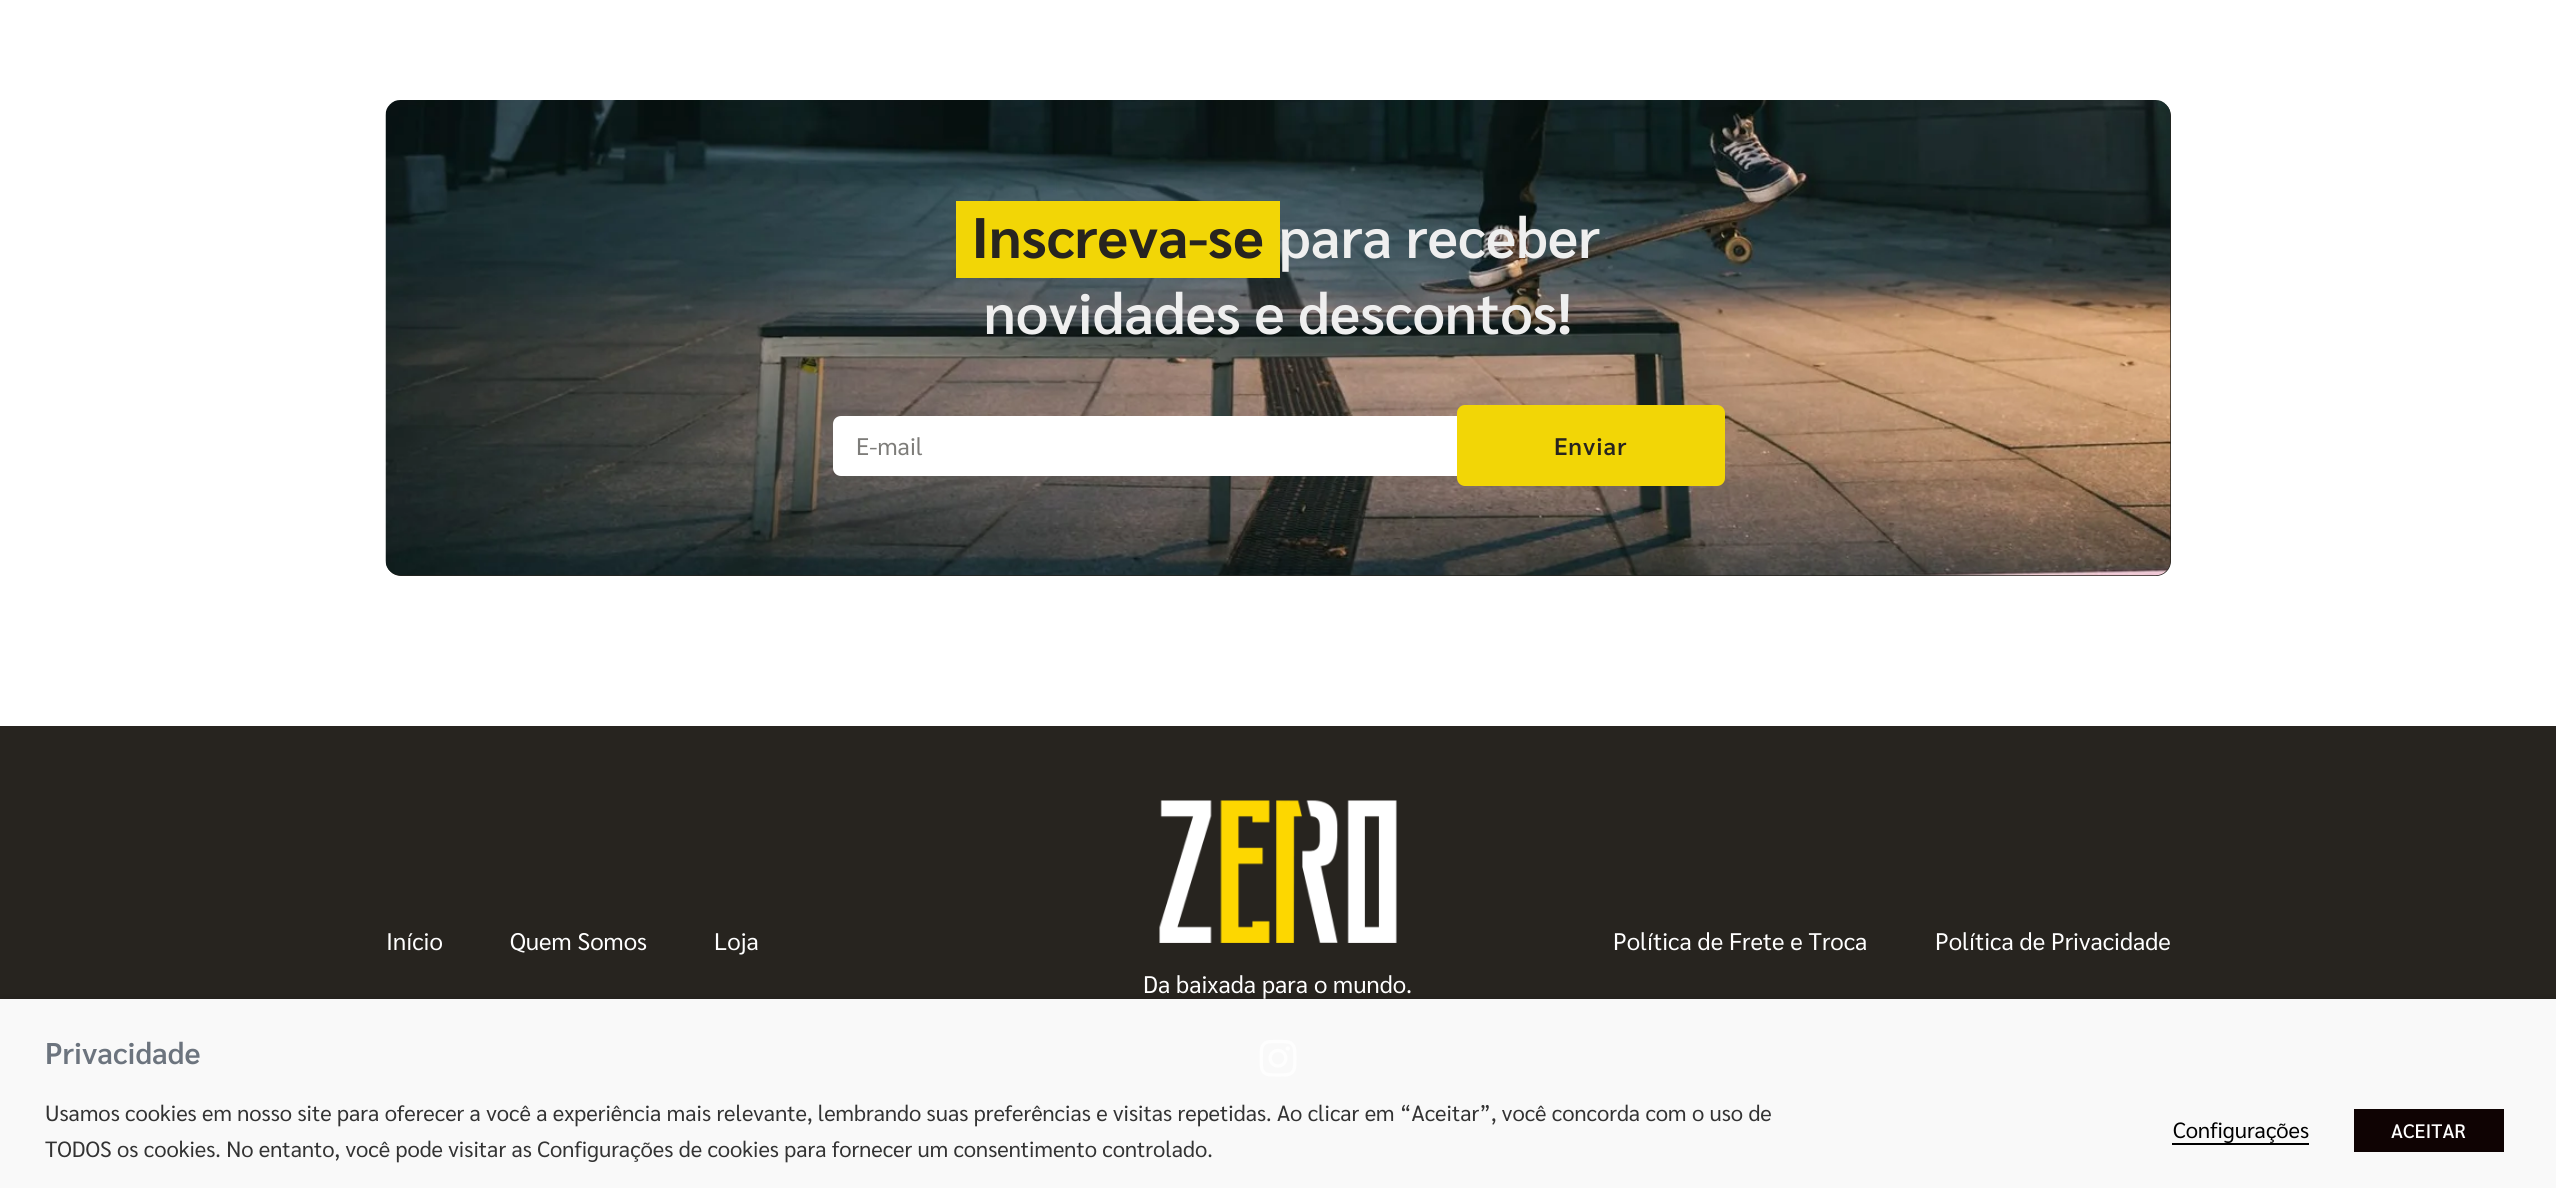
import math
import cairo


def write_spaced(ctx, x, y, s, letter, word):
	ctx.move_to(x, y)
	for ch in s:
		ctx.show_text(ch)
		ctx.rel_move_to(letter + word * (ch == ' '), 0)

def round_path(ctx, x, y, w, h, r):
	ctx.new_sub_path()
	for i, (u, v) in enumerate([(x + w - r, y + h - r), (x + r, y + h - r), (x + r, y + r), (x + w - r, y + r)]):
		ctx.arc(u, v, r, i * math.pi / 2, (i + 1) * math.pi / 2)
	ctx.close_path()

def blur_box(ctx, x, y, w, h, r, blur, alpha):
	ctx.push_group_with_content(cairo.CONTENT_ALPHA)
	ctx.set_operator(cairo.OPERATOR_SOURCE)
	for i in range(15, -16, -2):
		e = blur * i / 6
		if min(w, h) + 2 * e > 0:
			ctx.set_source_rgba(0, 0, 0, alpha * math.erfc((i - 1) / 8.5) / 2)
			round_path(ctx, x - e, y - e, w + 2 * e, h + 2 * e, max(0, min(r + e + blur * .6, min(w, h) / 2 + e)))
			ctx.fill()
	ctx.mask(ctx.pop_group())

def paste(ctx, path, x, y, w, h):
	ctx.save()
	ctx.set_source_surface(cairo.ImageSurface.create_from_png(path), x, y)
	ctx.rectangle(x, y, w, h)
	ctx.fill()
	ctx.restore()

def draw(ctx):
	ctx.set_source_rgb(1, 1, 1)
	ctx.paint()
	ctx.set_source_rgb(0.153, 0.141, 0.122)
	round_path(ctx, 386, 101, 1785, 475, 15)
	ctx.fill()
	paste(ctx, 'media/1.png', 385, 100, 1786, 476)
	ctx.set_source_rgb(0.949, 0.839, 0.024)
	ctx.rectangle(956, 201, 324, 77)
	ctx.fill()
	ctx.select_font_face('Sarabun', cairo.FONT_SLANT_NORMAL, cairo.FONT_WEIGHT_BOLD)
	ctx.set_font_size(57)
	ctx.set_source_rgb(0.153, 0.141, 0.122)
	ctx.move_to(971, 258)
	ctx.show_text('Inscreva-se')
	ctx.select_font_face('Sarabun SemiBold')
	ctx.set_source_rgb(0.937, 0.937, 0.937)
	ctx.move_to(1279, 258)
	ctx.show_text('para receber')
	ctx.move_to(984, 334)
	ctx.show_text('novidades e descontos!')
	ctx.set_source_rgb(1, 1, 1)
	ctx.new_path()
	ctx.move_to(841, 416)
	ctx.line_to(1457, 416)
	ctx.line_to(1457, 476)
	ctx.line_to(841, 476)
	ctx.curve_to(836.5, 476, 833, 472.5, 833, 468)
	ctx.line_to(833, 424)
	ctx.curve_to(833, 419.5, 836.5, 416, 841, 416)
	ctx.close_path()
	ctx.fill()
	ctx.select_font_face('Sarabun')
	ctx.set_font_size(24)
	ctx.set_source_rgb(0.49, 0.486, 0.475)
	ctx.move_to(856, 455)
	ctx.show_text('E-mail')
	ctx.set_source_rgb(0.949, 0.839, 0.024)
	round_path(ctx, 1457, 405, 268, 81, 8)
	ctx.fill()
	ctx.select_font_face('Sarabun SemiBold')
	ctx.set_source_rgb(0.153, 0.141, 0.122)
	write_spaced(ctx, 1554, 455, 'Enviar', 1, 0)
	ctx.rectangle(0, 726, 2556, 273)
	ctx.fill()
	ctx.set_source_rgb(0.976, 0.973, 0.973)
	ctx.rectangle(0, 999, 2556, 156)
	ctx.fill()
	ctx.select_font_face('Sarabun')
	ctx.set_source_rgb(1, 1, 1)
	for x, y, s in [
		(386, 950, 'Início'),
		(510, 950, 'Quem Somos'),
		(714, 950, 'Loja'),
		(1613, 950, 'Política de Frete e Troca'),
		(1935, 950, 'Política de Privacidade'),
	]:
		ctx.move_to(x, y)
		ctx.show_text(s)
	paste(ctx, 'media/2.png', 1159, 800, 238, 143)
	ctx.move_to(1143, 993)
	ctx.show_text('Da baixada para o mundo.')
	paste(ctx, 'media/3.png', 1259, 1039, 38, 38)
	ctx.set_source_rgb(0.976, 0.973, 0.973)
	ctx.rectangle(0, 1157, 2556, 31)
	ctx.fill()
	ctx.set_source_rgb(0.976, 0.976, 0.976)
	ctx.rectangle(0, 1155, 2556, 2)
	ctx.fill()
	ctx.save()
	ctx.rectangle(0, 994, 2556, 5)
	ctx.clip()
	ctx.set_source_rgb(0, 0, 0)
	blur_box(ctx, 0, 1007, 2556, 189, 0, 7.5, 0.5)
	ctx.restore()
	ctx.select_font_face('Sarabun SemiBold')
	ctx.set_font_size(30)
	ctx.set_source_rgb(0.424, 0.455, 0.494)
	ctx.move_to(45, 1064)
	ctx.show_text('Privacidade')
	ctx.select_font_face('Sarabun')
	ctx.set_font_size(22)
	ctx.set_source_rgb(0.2, 0.2, 0.2)
	ctx.move_to(45, 1121)
	ctx.show_text('Usamos cookies em nosso site para oferecer a você a experiência mais relevante, lembrando suas preferências e visitas repetidas. Ao clicar em “Aceitar”, você concorda com o uso de')
	ctx.move_to(45, 1157)
	ctx.show_text('TODOS os cookies. No entanto, você pode visitar as Configurações de cookies para fornecer um consentimento controlado.')
	ctx.set_source_rgb(0, 0, 0)
	ctx.move_to(2173, 1138)
	ctx.show_text('Configurações')
	ctx.rectangle(2172, 1143, 137, 2)
	ctx.fill()
	ctx.set_source_rgb(0.059, 0.012, 0.012)
	ctx.rectangle(2354, 1109, 150, 43)
	ctx.fill()
	ctx.select_font_face('Sarabun Medium')
	ctx.set_font_size(19.5)
	ctx.set_source_rgb(1, 1, 1)
	ctx.move_to(2391, 1138)
	ctx.show_text('ACEITAR')


surface = cairo.ImageSurface(cairo.FORMAT_RGB24, 2556, 1188)
ctx = cairo.Context(surface)
options = cairo.FontOptions()
options.set_hint_metrics(cairo.HINT_METRICS_OFF)
options.set_hint_style(cairo.HINT_STYLE_NONE)
ctx.set_font_options(options)
ctx.set_miter_limit(4)
draw(ctx)
surface.write_to_png('image.png')
